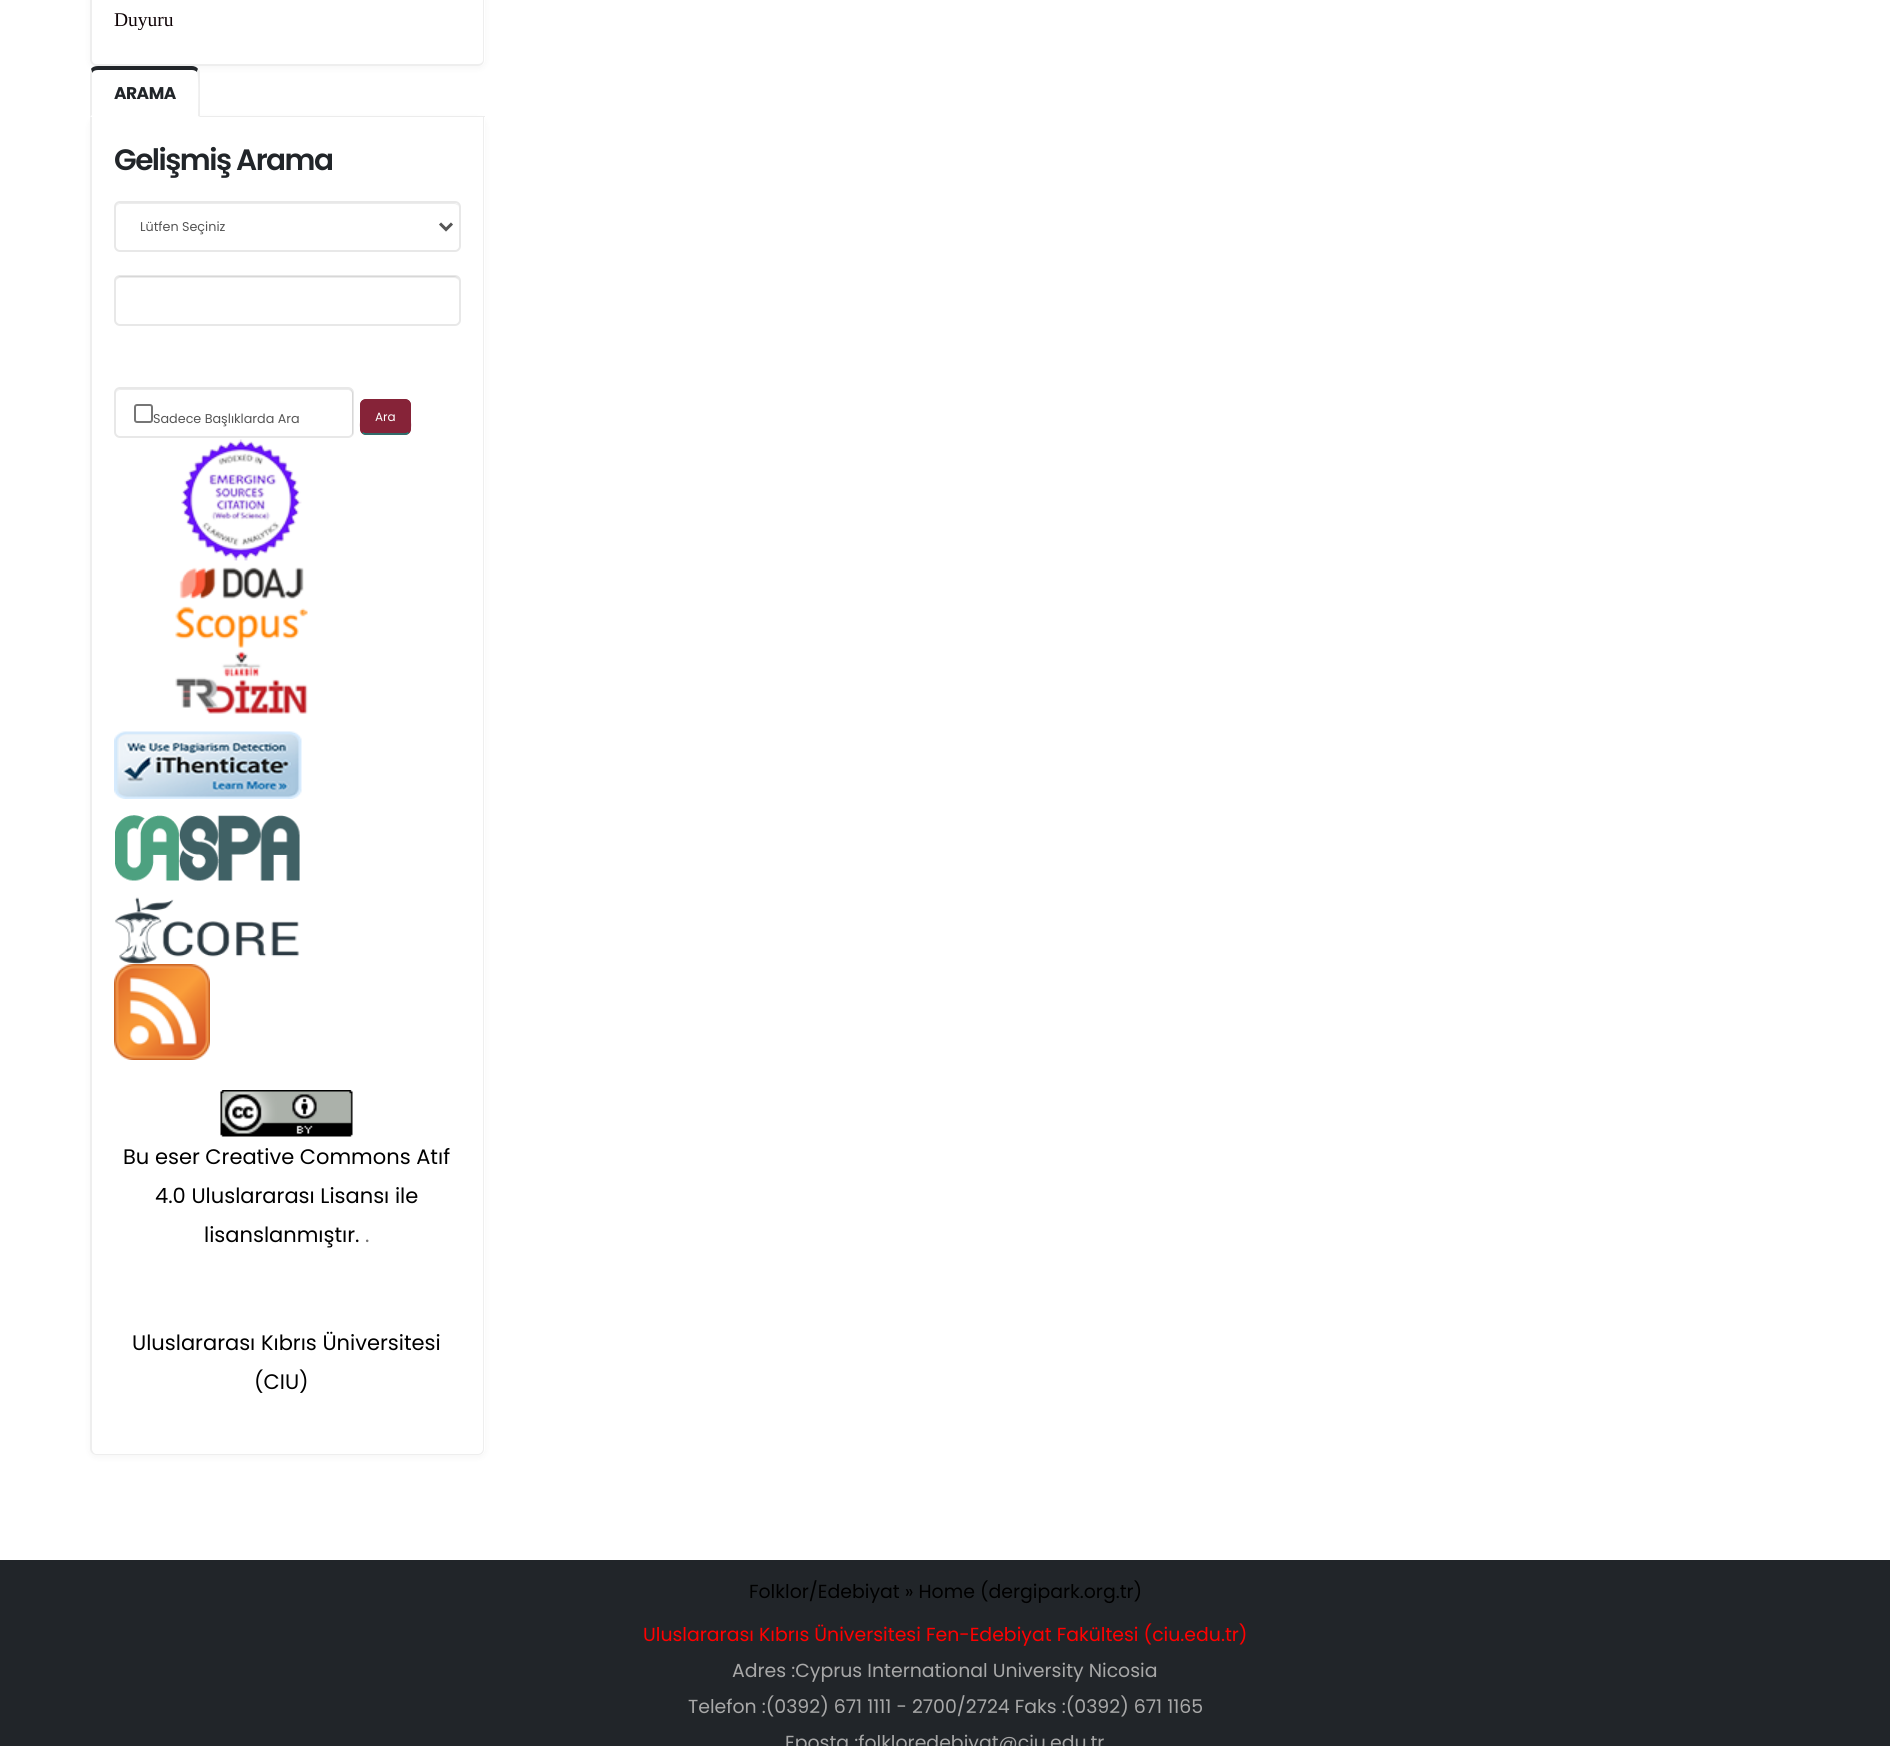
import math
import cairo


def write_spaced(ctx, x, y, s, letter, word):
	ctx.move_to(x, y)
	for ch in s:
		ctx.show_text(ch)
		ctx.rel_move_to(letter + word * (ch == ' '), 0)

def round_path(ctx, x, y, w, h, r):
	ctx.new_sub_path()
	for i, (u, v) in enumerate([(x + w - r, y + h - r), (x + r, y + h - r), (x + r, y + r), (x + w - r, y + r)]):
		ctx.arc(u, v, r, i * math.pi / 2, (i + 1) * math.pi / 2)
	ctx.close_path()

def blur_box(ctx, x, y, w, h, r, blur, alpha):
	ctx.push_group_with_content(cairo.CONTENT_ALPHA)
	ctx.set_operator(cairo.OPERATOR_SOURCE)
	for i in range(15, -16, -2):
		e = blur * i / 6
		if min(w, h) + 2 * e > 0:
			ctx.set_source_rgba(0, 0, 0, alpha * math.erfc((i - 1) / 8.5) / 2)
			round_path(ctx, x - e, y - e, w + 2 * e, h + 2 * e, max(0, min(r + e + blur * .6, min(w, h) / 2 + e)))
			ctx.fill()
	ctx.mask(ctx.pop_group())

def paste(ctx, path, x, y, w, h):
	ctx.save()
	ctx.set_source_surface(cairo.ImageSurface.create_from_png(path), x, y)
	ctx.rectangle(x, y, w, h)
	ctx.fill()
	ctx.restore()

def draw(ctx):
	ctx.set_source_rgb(1, 1, 1)
	ctx.paint()
	ctx.set_source_rgb(0, 0, 0)
	blur_box(ctx, 90, -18, 395, 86, 6, 4, 0.04)
	ctx.set_source_rgb(1, 1, 1)
	ctx.new_path()
	ctx.move_to(90, -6)
	ctx.line_to(485, -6)
	ctx.line_to(485, 60)
	ctx.curve_to(485, 63.5, 482.5, 66, 479, 66)
	ctx.line_to(96, 66)
	ctx.curve_to(92.5, 66, 90, 63.5, 90, 60)
	ctx.close_path()
	ctx.fill()
	ctx.set_source_rgb(0.933, 0.933, 0.933)
	ctx.set_fill_rule(cairo.FILL_RULE_EVEN_ODD)
	ctx.new_path()
	ctx.move_to(90, -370)
	ctx.line_to(484, -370)
	ctx.line_to(484, 60)
	ctx.curve_to(484, 63, 482, 66, 478, 66)
	ctx.line_to(96, 66)
	ctx.curve_to(93, 66, 90, 63, 90, 60)
	ctx.close_path()
	ctx.move_to(92, -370)
	ctx.line_to(483, -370)
	ctx.line_to(483, 60)
	ctx.curve_to(483, 62, 481, 64, 478, 64)
	ctx.line_to(96, 64)
	ctx.curve_to(94, 64, 92, 62, 92, 60)
	ctx.close_path()
	ctx.fill()
	ctx.save()
	ctx.set_fill_rule(cairo.FILL_RULE_WINDING)
	ctx.rectangle(114, 0, 269, 30)
	ctx.clip()
	ctx.select_font_face('Liberation Serif')
	ctx.set_font_size(19.5)
	ctx.set_source_rgb(0.059, 0.012, 0.027)
	ctx.move_to(114, 26)
	ctx.show_text('Duyuru')
	ctx.restore()
	ctx.rectangle(200, 116, 285, 1)
	ctx.fill()
	ctx.set_source_rgb(0, 0, 0)
	blur_box(ctx, 90, 119, 395, 1338, 6, 4, 0.04)
	ctx.set_source_rgb(1, 1, 1)
	ctx.new_path()
	ctx.move_to(98, 66)
	ctx.line_to(192, 66)
	ctx.curve_to(196.5, 66, 200, 69.5, 200, 74)
	ctx.line_to(200, 117)
	ctx.line_to(90, 117)
	ctx.line_to(90, 74)
	ctx.curve_to(90, 69.5, 93.5, 66, 98, 66)
	ctx.close_path()
	ctx.fill()
	ctx.set_source_rgb(0.129, 0.145, 0.161)
	ctx.set_fill_rule(cairo.FILL_RULE_WINDING)
	ctx.new_path()
	ctx.move_to(98, 66)
	ctx.curve_to(95, 66, 92, 67, 91, 69)
	ctx.line_to(92, 73)
	ctx.curve_to(93, 71, 95, 70, 98, 70)
	ctx.line_to(192, 70)
	ctx.curve_to(194, 70, 196, 71, 197, 72)
	ctx.line_to(198, 69)
	ctx.curve_to(197, 67, 194, 66, 192, 66)
	ctx.close_path()
	ctx.fill()
	ctx.set_source_rgb(0.933, 0.933, 0.933)
	ctx.new_path()
	ctx.move_to(200, 71)
	ctx.line_to(200, 117)
	ctx.line_to(198, 116)
	ctx.curve_to(198, 110, 199, 74, 197, 72)
	ctx.line_to(198, 69)
	ctx.close_path()
	ctx.fill()
	ctx.new_path()
	ctx.move_to(90, 117)
	ctx.line_to(92, 115)
	ctx.line_to(92, 73)
	ctx.line_to(91, 69)
	ctx.line_to(90, 74)
	ctx.close_path()
	ctx.fill()
	ctx.select_font_face('Poppins', cairo.FONT_SLANT_NORMAL, cairo.FONT_WEIGHT_BOLD)
	ctx.set_font_size(17)
	ctx.set_source_rgb(0.129, 0.145, 0.161)
	write_spaced(ctx, 114, 99, 'ARAMA', -0.5, 0)
	ctx.set_source_rgb(1, 1, 1)
	ctx.new_path()
	ctx.move_to(90, 117)
	ctx.line_to(485, 117)
	ctx.line_to(485, 1449)
	ctx.curve_to(485, 1452.5, 482.5, 1455, 479, 1455)
	ctx.line_to(96, 1455)
	ctx.curve_to(92.5, 1455, 90, 1452.5, 90, 1449)
	ctx.close_path()
	ctx.fill()
	ctx.set_source_rgb(0.933, 0.933, 0.933)
	ctx.set_fill_rule(cairo.FILL_RULE_EVEN_ODD)
	ctx.new_path()
	ctx.move_to(90, 117)
	ctx.line_to(484, 117)
	ctx.line_to(484, 1449)
	ctx.curve_to(484, 1452, 482, 1455, 478, 1455)
	ctx.line_to(96, 1455)
	ctx.curve_to(93, 1455, 90, 1452, 90, 1449)
	ctx.close_path()
	ctx.move_to(92, 117)
	ctx.line_to(483, 117)
	ctx.line_to(483, 1449)
	ctx.curve_to(483, 1451, 481, 1454, 478, 1454)
	ctx.line_to(96, 1454)
	ctx.curve_to(94, 1454, 92, 1451, 92, 1449)
	ctx.close_path()
	ctx.fill()
	ctx.select_font_face('Poppins SemiBold')
	ctx.set_font_size(29.5)
	ctx.set_source_rgb(0.129, 0.145, 0.161)
	write_spaced(ctx, 114, 170, 'Gelişmiş Arama', -1.5, 0)
	ctx.set_source_rgb(0.925, 0.925, 0.925)
	ctx.set_fill_rule(cairo.FILL_RULE_WINDING)
	ctx.new_path()
	ctx.move_to(120, 204)
	ctx.line_to(454, 204)
	ctx.curve_to(457, 204, 459, 206, 459, 208)
	ctx.curve_to(459, 205, 457, 203, 454, 203)
	ctx.line_to(121, 203)
	ctx.curve_to(118, 203, 116, 205, 116, 208)
	ctx.curve_to(116, 206, 118, 204, 120, 204)
	ctx.close_path()
	ctx.fill()
	round_path(ctx, 115, 202, 345, 49, 5)
	ctx.set_source_rgb(0.91, 0.91, 0.91)
	ctx.stroke()
	ctx.new_path()
	ctx.move_to(440, 223.5)
	ctx.line_to(446, 229.5)
	ctx.line_to(452, 223.5)
	ctx.set_source_rgb(0.333, 0.333, 0.333)
	ctx.set_line_width(3)
	ctx.stroke()
	ctx.select_font_face('Poppins')
	ctx.set_font_size(12.75)
	ctx.move_to(140, 231)
	ctx.show_text('Lütfen Seçiniz')
	ctx.set_source_rgb(0.925, 0.925, 0.925)
	ctx.new_path()
	ctx.move_to(120, 278)
	ctx.line_to(454, 278)
	ctx.curve_to(457, 278, 459, 280, 459, 282)
	ctx.curve_to(459, 279, 457, 276, 454, 276)
	ctx.line_to(121, 276)
	ctx.curve_to(118, 276, 116, 279, 116, 282)
	ctx.curve_to(116, 280, 118, 278, 120, 278)
	ctx.close_path()
	ctx.fill()
	round_path(ctx, 115, 276, 345, 49, 5)
	ctx.set_source_rgba(0, 0, 0, 0.09)
	ctx.set_line_width(2)
	ctx.stroke()
	ctx.set_source_rgb(0.925, 0.925, 0.925)
	ctx.new_path()
	ctx.move_to(120, 390)
	ctx.line_to(348, 390)
	ctx.curve_to(350, 390, 352, 392, 352, 394)
	ctx.line_to(352, 435)
	ctx.curve_to(353, 434, 353, 433, 353, 432)
	ctx.line_to(353, 394)
	ctx.curve_to(353, 391, 351, 389, 348, 389)
	ctx.line_to(121, 389)
	ctx.curve_to(118, 389, 116, 391, 116, 394)
	ctx.curve_to(116, 392, 118, 390, 120, 390)
	ctx.close_path()
	ctx.fill()
	round_path(ctx, 115, 388, 238, 49, 5)
	ctx.set_source_rgba(0, 0, 0, 0.09)
	ctx.stroke()
	round_path(ctx, 135, 405, 17, 17, 2)
	ctx.set_source_rgb(0.463, 0.463, 0.463)
	ctx.stroke()
	ctx.set_source_rgb(0.333, 0.333, 0.333)
	ctx.move_to(153, 423)
	ctx.show_text('Sadece Başlıklarda Ara')
	ctx.set_source_rgb(0.525, 0.137, 0.22)
	round_path(ctx, 360, 399, 51, 36, 6)
	ctx.fill()
	ctx.new_path()
	ctx.move_to(408.5, 432.5)
	ctx.curve_to(407.5, 433.5, 406.5, 434, 405, 434)
	ctx.line_to(366, 434)
	ctx.curve_to(364.5, 434, 363.5, 433.5, 362.5, 432.5)
	ctx.set_source_rgb(0.075, 0.522, 0.486)
	ctx.set_line_width(1.5)
	ctx.stroke()
	ctx.new_path()
	ctx.move_to(362.5, 432.5)
	ctx.curve_to(359.5, 429.5, 361, 420.5, 361, 417)
	ctx.line_to(361, 404)
	ctx.curve_to(362, 398.5, 368.5, 400, 372.5, 400)
	ctx.line_to(398.5, 400)
	ctx.curve_to(402.5, 400, 409, 398.5, 410, 404)
	ctx.line_to(410, 417)
	ctx.curve_to(410, 420.5, 411.5, 429.5, 408.5, 432.5)
	ctx.set_source_rgb(0.525, 0.137, 0.22)
	ctx.stroke()
	ctx.set_font_size(12)
	ctx.set_source_rgb(1, 1, 1)
	ctx.move_to(375, 421)
	ctx.show_text('Ara')
	paste(ctx, 'media/1.png', 181, 439, 121, 122)
	paste(ctx, 'media/2.png', 179, 567, 125, 32)
	paste(ctx, 'media/3.png', 175, 606, 133, 42)
	paste(ctx, 'media/4.png', 175, 651, 133, 63)
	paste(ctx, 'media/5.png', 114, 731, 188, 68)
	paste(ctx, 'media/6.png', 115, 815, 185, 66)
	paste(ctx, 'media/7.png', 115, 897, 185, 67)
	paste(ctx, 'media/8.png', 114, 964, 96, 96)
	paste(ctx, 'media/9.png', 220, 1090, 133, 47)
	ctx.set_font_size(21)
	ctx.set_source_rgb(0, 0, 0)
	for x, y, s in [
		(123, 1164, 'Bu eser Creative Commons Atıf'),
		(155, 1203, '4.0 Uluslararası Lisansı ile'),
		(204, 1242, 'lisanslanmıştır.'),
	]:
		ctx.move_to(x, y)
		ctx.show_text(s)
	ctx.set_source_rgb(0.467, 0.467, 0.467)
	ctx.move_to(365, 1242)
	ctx.show_text('.')
	ctx.set_source_rgb(0, 0, 0)
	ctx.move_to(132, 1350)
	ctx.show_text('Uluslararası Kıbrıs Üniversitesi')
	ctx.move_to(254, 1389)
	ctx.show_text('(CIU)')
	ctx.set_source_rgb(0.129, 0.145, 0.161)
	ctx.rectangle(0, 1560, 1890, 186)
	ctx.fill()
	ctx.set_font_size(18.9)
	ctx.set_source_rgb(0, 0, 0)
	ctx.move_to(749, 1598)
	ctx.show_text('Folklor/Edebiyat » Home (dergipark.org.tr)')
	ctx.set_source_rgb(1, 0, 0)
	ctx.move_to(643, 1641)
	ctx.show_text('Uluslararası Kıbrıs Üniversitesi Fen-Edebiyat Fakültesi (ciu.edu.tr)')
	ctx.set_source_rgb(0.659, 0.659, 0.659)
	for x, y, s in [
		(732, 1677, 'Adres :Cyprus International University Nicosia'),
		(688, 1713, 'Telefon :(0392) 671 1111 - 2700/2724 Faks :(0392) 671 1165'),
		(785, 1749, 'Eposta :folkloredebiyat@ciu.edu.tr'),
	]:
		ctx.move_to(x, y)
		ctx.show_text(s)


surface = cairo.ImageSurface(cairo.FORMAT_RGB24, 1890, 1746)
ctx = cairo.Context(surface)
options = cairo.FontOptions()
options.set_hint_metrics(cairo.HINT_METRICS_OFF)
options.set_hint_style(cairo.HINT_STYLE_NONE)
ctx.set_font_options(options)
ctx.set_miter_limit(4)
draw(ctx)
surface.write_to_png('image.png')
